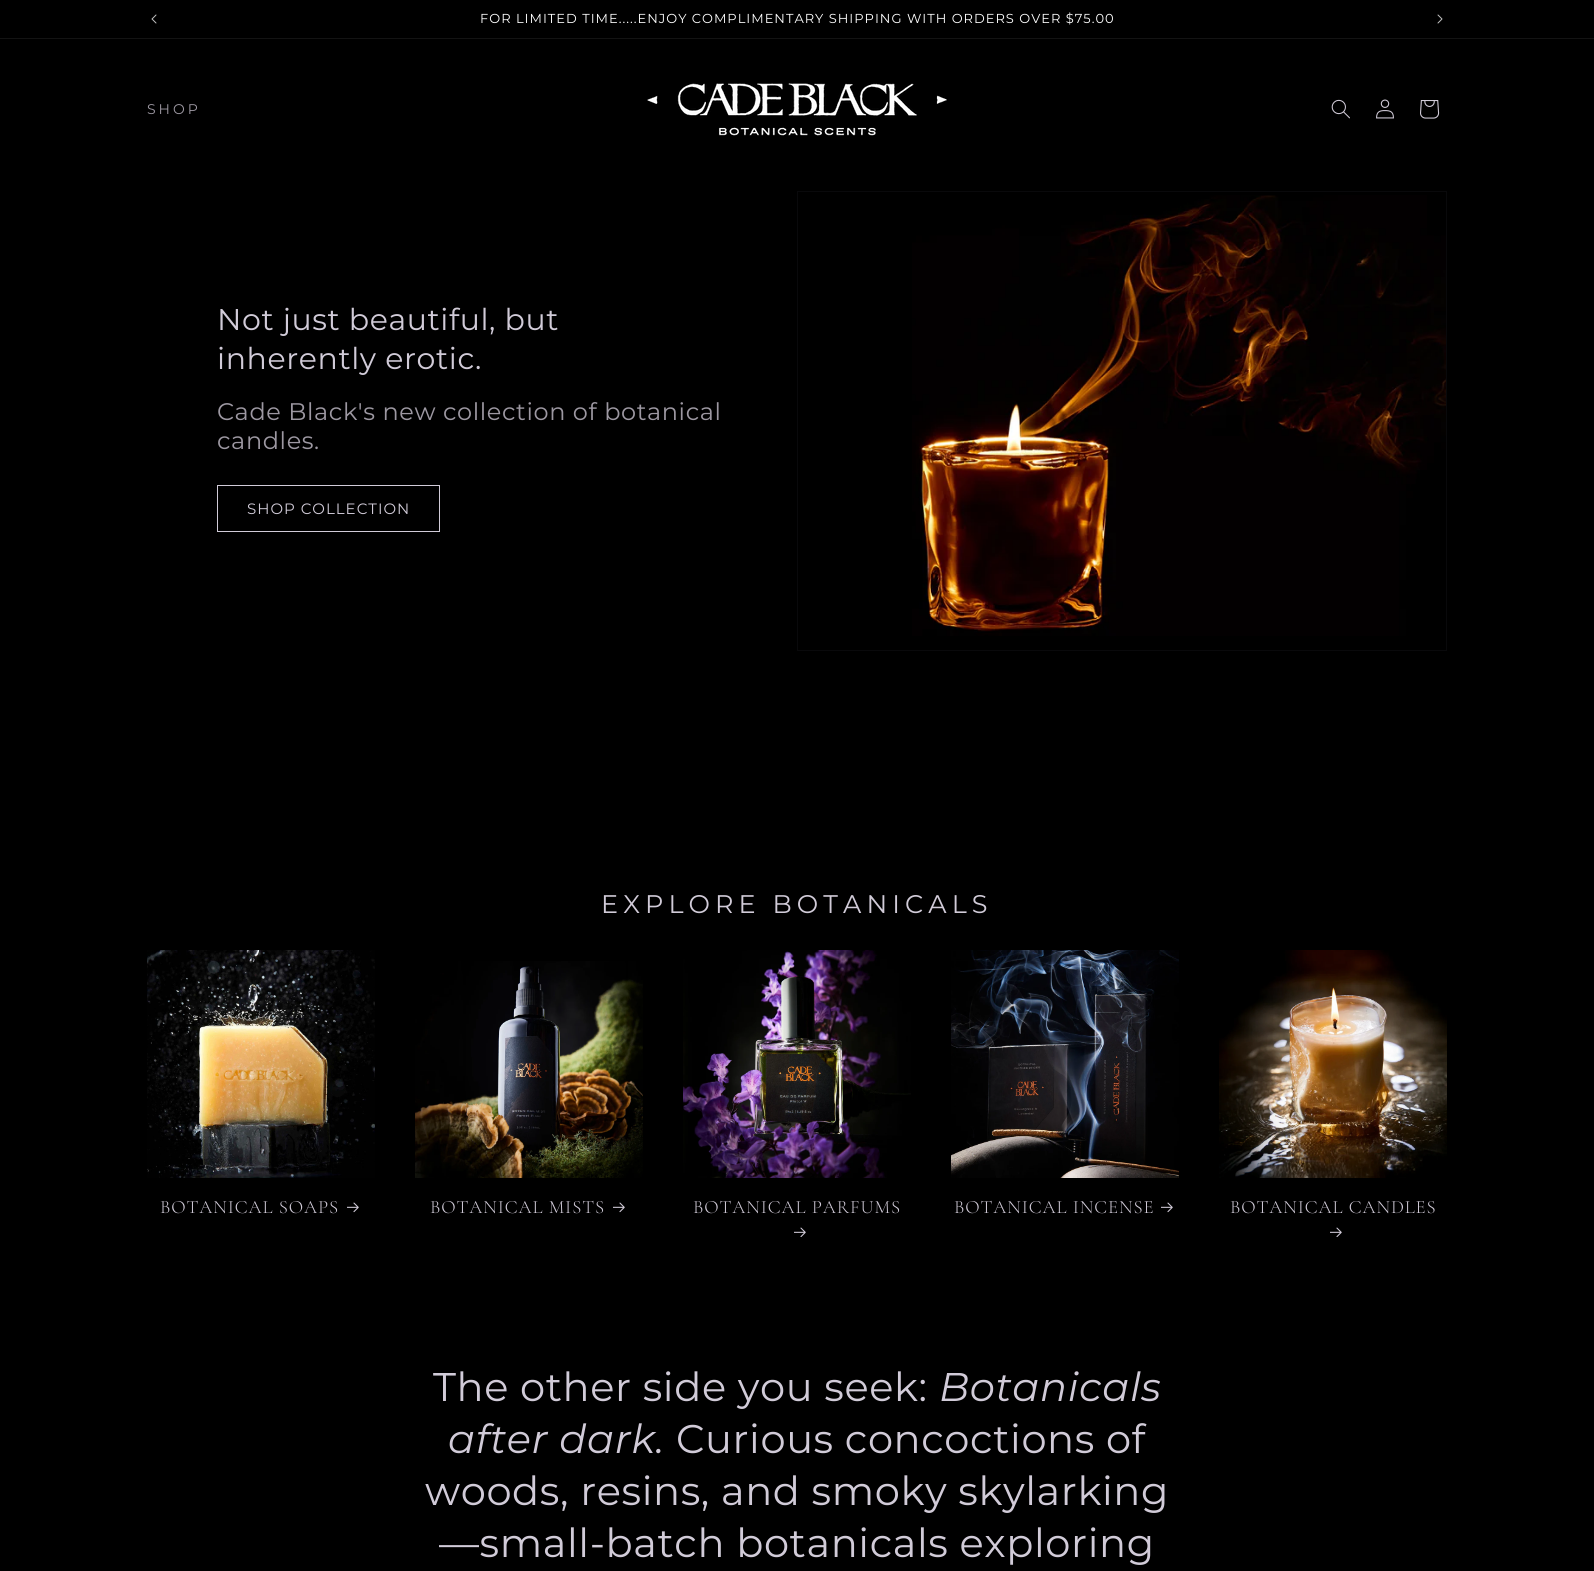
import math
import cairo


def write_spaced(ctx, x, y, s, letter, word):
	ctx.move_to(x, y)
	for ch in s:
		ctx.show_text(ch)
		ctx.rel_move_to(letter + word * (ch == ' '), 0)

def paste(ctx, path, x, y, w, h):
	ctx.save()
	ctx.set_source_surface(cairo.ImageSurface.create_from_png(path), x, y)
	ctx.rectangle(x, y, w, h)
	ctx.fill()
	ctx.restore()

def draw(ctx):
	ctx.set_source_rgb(0, 0, 0)
	ctx.paint()
	ctx.set_source_rgb(0.078, 0.078, 0.078)
	ctx.rectangle(0, 38, 1594, 1)
	ctx.fill()
	paste(ctx, 'media/1.png', 151, 14, 6, 10)
	ctx.select_font_face('Montserrat Thin')
	ctx.set_font_size(13)
	ctx.set_source_rgb(1, 1, 1)
	write_spaced(ctx, 480, 23, 'FOR LIMITED TIME.....ENJOY COMPLIMENTARY SHIPPING WITH ORDERS OVER $75.00', 1, 0)
	paste(ctx, 'media/2.png', 1437, 14, 6, 10)
	ctx.set_font_size(14)
	ctx.set_source_rgb(0.616, 0.596, 0.635)
	write_spaced(ctx, 147, 114, 'SHOP', 3, 0)
	paste(ctx, 'media/3.png', 647, 83, 300, 53)
	paste(ctx, 'media/4.png', 1331, 99, 19, 20)
	paste(ctx, 'media/5.png', 1376, 99, 18, 20)
	paste(ctx, 'media/6.png', 1420, 100, 20, 19)
	ctx.set_font_size(30)
	ctx.set_source_rgb(0.82, 0.796, 0.847)
	write_spaced(ctx, 217, 330, 'Not just beautiful, but', 0.6, 0)
	write_spaced(ctx, 217, 369, 'inherently erotic.', 0.6, 0)
	ctx.set_font_size(24)
	ctx.set_source_rgb(0.616, 0.596, 0.635)
	write_spaced(ctx, 217, 420, 'Cade Black\'s new collection of botanical', 0.6, 0)
	write_spaced(ctx, 217, 449, 'candles.', 0.6, 0)
	ctx.rectangle(217.5, 485.5, 222, 46)
	ctx.set_source_rgb(0.82, 0.796, 0.847)
	ctx.set_line_width(1)
	ctx.stroke()
	ctx.set_font_size(15)
	write_spaced(ctx, 247, 514, 'SHOP COLLECTION', 1, 0)
	ctx.rectangle(797.5, 191.5, 649, 459)
	ctx.set_source_rgb(0.039, 0.039, 0.043)
	ctx.stroke()
	paste(ctx, 'media/7.png', 912, 195, 534, 441)
	ctx.set_font_size(25.5)
	ctx.set_source_rgb(0.82, 0.796, 0.847)
	write_spaced(ctx, 601, 913, 'EXPLORE BOTANICALS', 5.1, 0)
	paste(ctx, 'media/8.png', 147, 950, 228, 228)
	ctx.select_font_face('Cormorant Garamond Light')
	ctx.set_font_size(18.75)
	write_spaced(ctx, 160, 1213, 'BOTANICAL SOAPS', 0.9, 0)
	paste(ctx, 'media/9.png', 347, 1202, 12, 11)
	paste(ctx, 'media/10.png', 415, 961, 228, 217)
	write_spaced(ctx, 430, 1213, 'BOTANICAL MISTS', 0.9, 0)
	paste(ctx, 'media/9.png', 613, 1202, 12, 11)
	paste(ctx, 'media/11.png', 683, 950, 228, 228)
	write_spaced(ctx, 693, 1213, 'BOTANICAL PARFUMS', 0.9, 0)
	paste(ctx, 'media/12.png', 794, 1227, 12, 10)
	paste(ctx, 'media/13.png', 951, 950, 228, 228)
	write_spaced(ctx, 954, 1213, 'BOTANICAL INCENSE', 0.9, 0)
	paste(ctx, 'media/9.png', 1161, 1202, 12, 11)
	paste(ctx, 'media/14.png', 1219, 950, 228, 228)
	write_spaced(ctx, 1230, 1213, 'BOTANICAL CANDLES', 0.9, 0)
	paste(ctx, 'media/12.png', 1330, 1227, 12, 10)
	ctx.select_font_face('Montserrat Thin')
	ctx.set_font_size(40)
	write_spaced(ctx, 433, 1401, 'The other side you seek:', 0.6, 0)
	ctx.select_font_face('Montserrat', cairo.FONT_SLANT_ITALIC)
	write_spaced(ctx, 939, 1401, 'Botanicals', 0.6, 0)
	write_spaced(ctx, 448, 1453, 'after dark.', 0.6, 0)
	ctx.select_font_face('Montserrat Thin')
	for x, y, s in [
		(676, 1453, 'Curious concoctions of'),
		(425, 1505, 'woods, resins, and smoky skylarking'),
		(439, 1557, '—small-batch botanicals exploring'),
	]:
		write_spaced(ctx, x, y, s, 0.6, 0)


surface = cairo.ImageSurface(cairo.FORMAT_RGB24, 1594, 1571)
ctx = cairo.Context(surface)
options = cairo.FontOptions()
options.set_hint_metrics(cairo.HINT_METRICS_OFF)
options.set_hint_style(cairo.HINT_STYLE_NONE)
ctx.set_font_options(options)
ctx.set_miter_limit(4)
draw(ctx)
surface.write_to_png('image.png')
